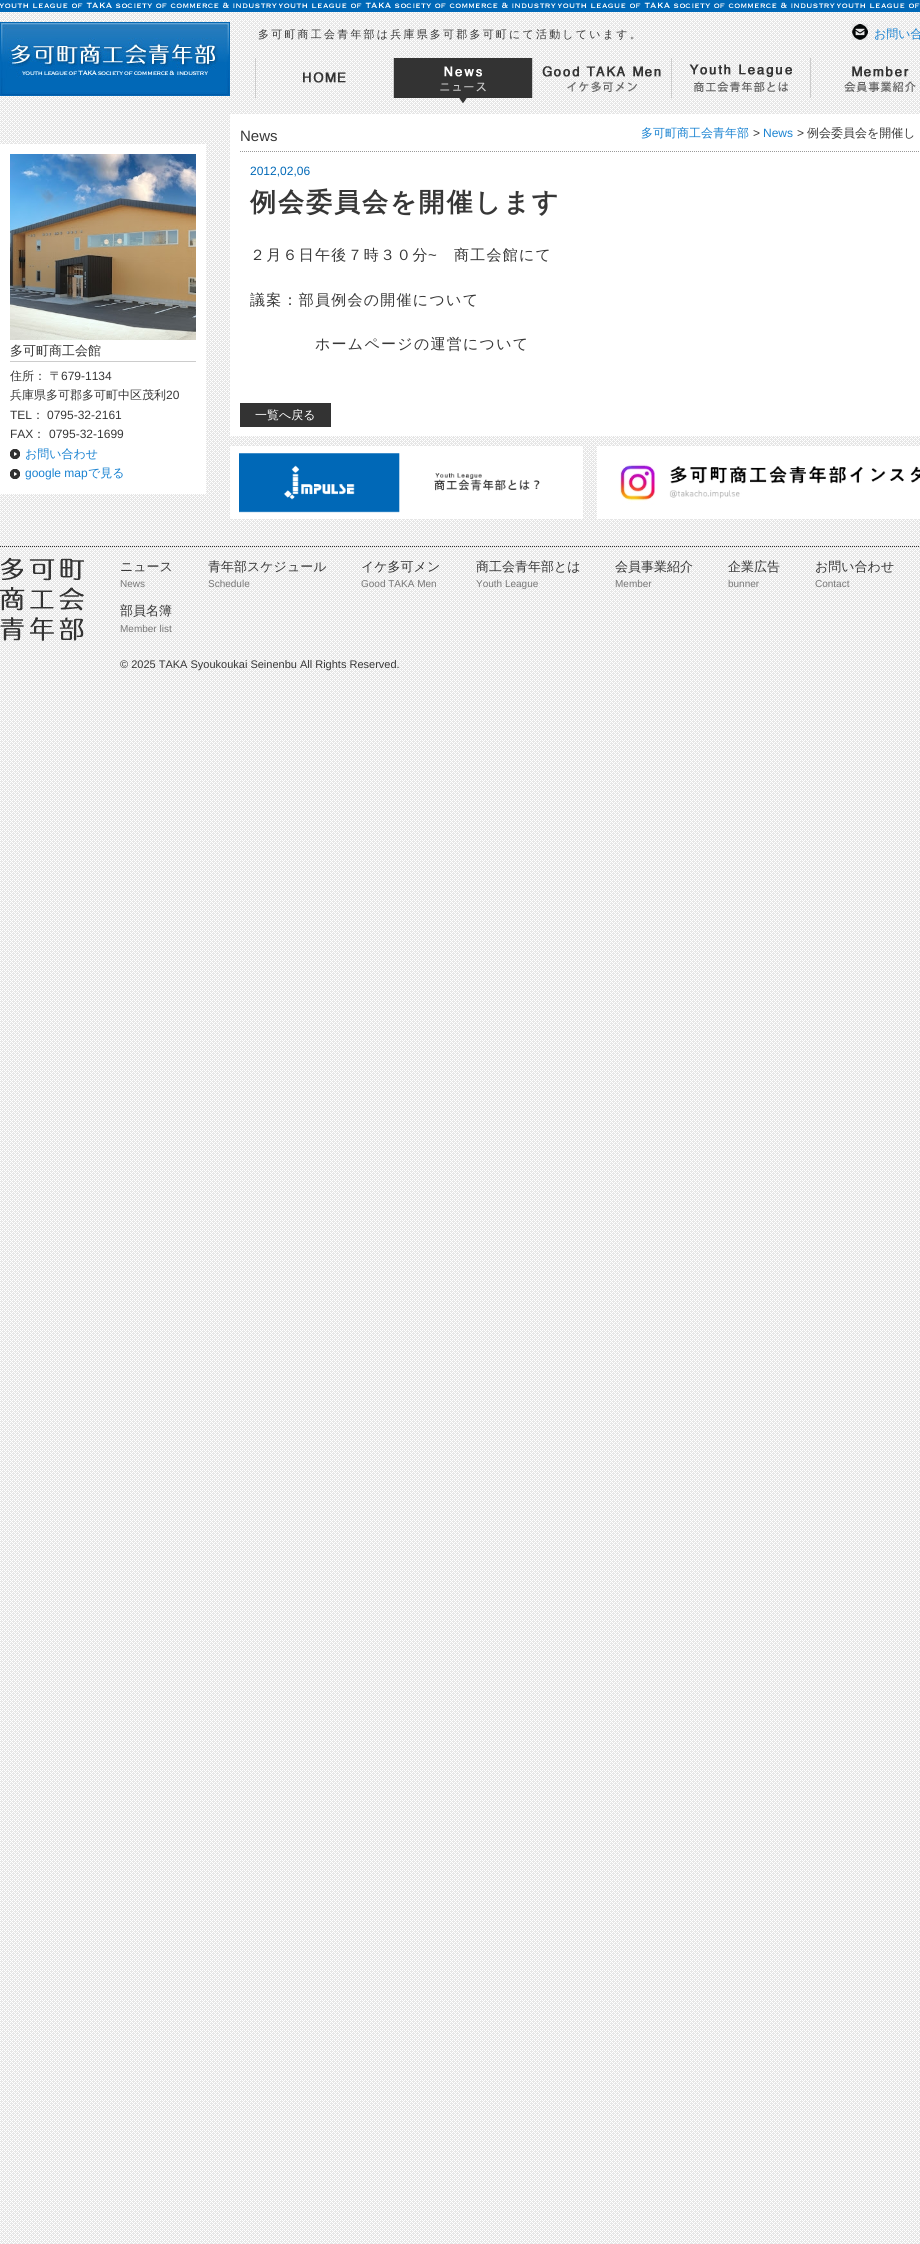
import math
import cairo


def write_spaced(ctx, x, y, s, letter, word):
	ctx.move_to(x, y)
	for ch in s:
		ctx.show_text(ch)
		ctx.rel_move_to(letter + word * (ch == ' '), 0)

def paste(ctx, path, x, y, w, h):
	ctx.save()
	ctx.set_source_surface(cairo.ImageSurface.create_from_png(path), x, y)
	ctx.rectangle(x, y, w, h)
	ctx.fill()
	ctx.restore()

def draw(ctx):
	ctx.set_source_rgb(1, 1, 1)
	ctx.paint()
	paste(ctx, 'media/1.png', 0, 12, 920, 2232)
	paste(ctx, 'media/2.png', 0, 0, 920, 12)
	paste(ctx, 'media/3.png', 0, 22, 230, 74)
	ctx.select_font_face('WenQuanYi Zen Hei Medium')
	ctx.set_font_size(11)
	ctx.set_source_rgb(0.216, 0.216, 0.216)
	write_spaced(ctx, 258, 38, '多可町商工会青年部は兵庫県多可郡多可町にて活動しています。', 2.2, 0)
	paste(ctx, 'media/4.png', 852, 24, 16, 16)
	ctx.set_font_size(12)
	ctx.set_source_rgb(0.098, 0.51, 0.82)
	ctx.move_to(874, 38)
	ctx.show_text('お問い合')
	paste(ctx, 'media/5.png', 255, 58, 139, 40)
	paste(ctx, 'media/6.png', 394, 58, 139, 45)
	paste(ctx, 'media/7.png', 542, 58, 130, 40)
	paste(ctx, 'media/8.png', 689, 58, 122, 40)
	paste(ctx, 'media/9.png', 844, 66, 72, 26)
	ctx.set_source_rgb(1, 1, 1)
	ctx.rectangle(0, 144, 206, 350)
	ctx.fill()
	paste(ctx, 'media/10.png', 10, 154, 186, 186)
	ctx.set_source_rgb(0.8, 0.8, 0.8)
	ctx.rectangle(10, 361, 186, 1)
	ctx.fill()
	ctx.set_font_size(13)
	ctx.set_source_rgb(0.216, 0.216, 0.216)
	ctx.move_to(10, 355)
	ctx.show_text('多可町商工会館')
	ctx.set_font_size(12)
	ctx.move_to(10, 380)
	ctx.show_text('住所： 〒')
	ctx.select_font_face('Liberation Sans')
	ctx.move_to(61, 380)
	ctx.show_text('679-1134')
	ctx.select_font_face('WenQuanYi Zen Hei Medium')
	ctx.move_to(10, 399)
	ctx.show_text('兵庫県多可郡多可町中区茂利')
	ctx.select_font_face('Liberation Sans')
	ctx.move_to(166, 399)
	ctx.show_text('20')
	ctx.move_to(10, 419)
	ctx.show_text('TEL')
	ctx.select_font_face('WenQuanYi Zen Hei Medium')
	ctx.move_to(32, 419)
	ctx.show_text('：')
	ctx.select_font_face('Liberation Sans')
	ctx.move_to(47, 419)
	ctx.show_text('0795-32-2161')
	ctx.move_to(10, 438)
	ctx.show_text('FAX')
	ctx.select_font_face('WenQuanYi Zen Hei Medium')
	ctx.move_to(33, 438)
	ctx.show_text('：')
	ctx.select_font_face('Liberation Sans')
	ctx.move_to(49, 438)
	ctx.show_text('0795-32-1699')
	paste(ctx, 'media/11.png', 10, 449, 10, 10)
	ctx.select_font_face('WenQuanYi Zen Hei Medium')
	ctx.set_source_rgb(0.098, 0.51, 0.82)
	ctx.move_to(25, 458)
	ctx.show_text('お問い合わせ')
	paste(ctx, 'media/11.png', 10, 469, 10, 10)
	ctx.select_font_face('Liberation Sans')
	ctx.move_to(25, 477)
	ctx.show_text('google map')
	ctx.select_font_face('WenQuanYi Zen Hei Medium')
	ctx.move_to(88, 477)
	ctx.show_text('で見る')
	ctx.set_source_rgb(1, 1, 1)
	ctx.rectangle(230, 114, 690, 322)
	ctx.fill()
	ctx.new_path()
	ctx.move_to(240, 151.5)
	ctx.line_to(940, 151.5)
	ctx.set_source_rgb(0.6, 0.6, 0.6)
	ctx.set_line_width(1)
	ctx.set_dash([1, 1])
	ctx.stroke()
	ctx.select_font_face('Liberation Sans')
	ctx.set_font_size(15)
	ctx.set_source_rgb(0.216, 0.216, 0.216)
	ctx.move_to(240, 141)
	ctx.show_text('News')
	ctx.select_font_face('WenQuanYi Zen Hei Medium')
	ctx.set_font_size(12)
	ctx.set_source_rgb(0.098, 0.51, 0.82)
	ctx.move_to(641, 137)
	ctx.show_text('多可町商工会青年部')
	ctx.select_font_face('Liberation Sans')
	ctx.set_source_rgb(0.216, 0.216, 0.216)
	ctx.move_to(753, 137)
	ctx.show_text('>')
	ctx.set_source_rgb(0.098, 0.51, 0.82)
	ctx.move_to(763, 137)
	ctx.show_text('News')
	ctx.set_source_rgb(0.216, 0.216, 0.216)
	ctx.move_to(797, 137)
	ctx.show_text('>')
	ctx.select_font_face('WenQuanYi Zen Hei Medium')
	ctx.move_to(807, 137)
	ctx.show_text('例会委員会を開催し')
	ctx.select_font_face('Liberation Sans')
	ctx.set_source_rgb(0, 0.408, 0.718)
	ctx.move_to(250, 175)
	ctx.show_text('2012,02,06')
	ctx.select_font_face('WenQuanYi Zen Hei', cairo.FONT_SLANT_NORMAL, cairo.FONT_WEIGHT_BOLD)
	ctx.set_font_size(26)
	ctx.set_source_rgb(0.216, 0.216, 0.216)
	write_spaced(ctx, 250, 211, '例会委員会を開催します', 2, 0)
	ctx.select_font_face('WenQuanYi Zen Hei Medium')
	ctx.set_font_size(15)
	write_spaced(ctx, 250, 260, '２月６日午後７時３０分', 1.25, 0)
	ctx.select_font_face('Liberation Sans')
	write_spaced(ctx, 428, 260, '~', 1.25, 0)
	ctx.select_font_face('WenQuanYi Zen Hei Medium')
	for x, y, s in [
		(454, 260, '商工会館にて'),
		(250, 305, '議案：部員例会の開催について'),
		(315, 349, 'ホームページの運営について'),
	]:
		write_spaced(ctx, x, y, s, 1.25, 0)
	ctx.set_source_rgb(0.2, 0.2, 0.2)
	ctx.rectangle(240, 403, 91, 24)
	ctx.fill()
	ctx.set_font_size(12)
	ctx.set_source_rgb(1, 1, 1)
	ctx.move_to(255, 419)
	ctx.show_text('一覧へ戻る')
	paste(ctx, 'media/12.png', 230, 446, 353, 73)
	paste(ctx, 'media/13.png', 597, 446, 323, 73)
	ctx.new_path()
	ctx.move_to(0, 546.5)
	ctx.line_to(920, 546.5)
	ctx.set_source_rgb(0.2, 0.2, 0.2)
	ctx.stroke()
	paste(ctx, 'media/14.png', 0, 557, 84, 84)
	ctx.set_font_size(13)
	ctx.set_source_rgb(0.216, 0.216, 0.216)
	for x, y, s in [
		(120, 571, 'ニュース'),
		(208, 571, '青年部スケジュール'),
		(361, 571, 'イケ多可メン'),
		(476, 571, '商工会青年部とは'),
		(615, 571, '会員事業紹介'),
		(728, 571, '企業広告'),
		(815, 571, 'お問い合わせ'),
	]:
		ctx.move_to(x, y)
		ctx.show_text(s)
	ctx.select_font_face('Liberation Sans')
	ctx.set_font_size(10)
	ctx.set_source_rgb(0.467, 0.467, 0.467)
	for x, y, s in [
		(120, 587, 'News'),
		(208, 587, 'Schedule'),
		(361, 587, 'Good TAKA Men'),
		(476, 587, 'Youth League'),
		(615, 587, 'Member'),
		(728, 587, 'bunner'),
		(815, 587, 'Contact'),
	]:
		ctx.move_to(x, y)
		ctx.show_text(s)
	ctx.select_font_face('WenQuanYi Zen Hei Medium')
	ctx.set_font_size(13)
	ctx.set_source_rgb(0.216, 0.216, 0.216)
	ctx.move_to(120, 615)
	ctx.show_text('部員名簿')
	ctx.select_font_face('Liberation Sans')
	ctx.set_font_size(10)
	ctx.set_source_rgb(0.467, 0.467, 0.467)
	ctx.move_to(120, 632)
	ctx.show_text('Member list')
	ctx.set_font_size(11)
	ctx.set_source_rgb(0.216, 0.216, 0.216)
	ctx.move_to(120, 668)
	ctx.show_text('© 2025 TAKA Syoukoukai Seinenbu All Rights Reserved.')


surface = cairo.ImageSurface(cairo.FORMAT_RGB24, 920, 2244)
ctx = cairo.Context(surface)
options = cairo.FontOptions()
options.set_hint_metrics(cairo.HINT_METRICS_OFF)
options.set_hint_style(cairo.HINT_STYLE_NONE)
ctx.set_font_options(options)
ctx.set_miter_limit(4)
draw(ctx)
surface.write_to_png('image.png')
